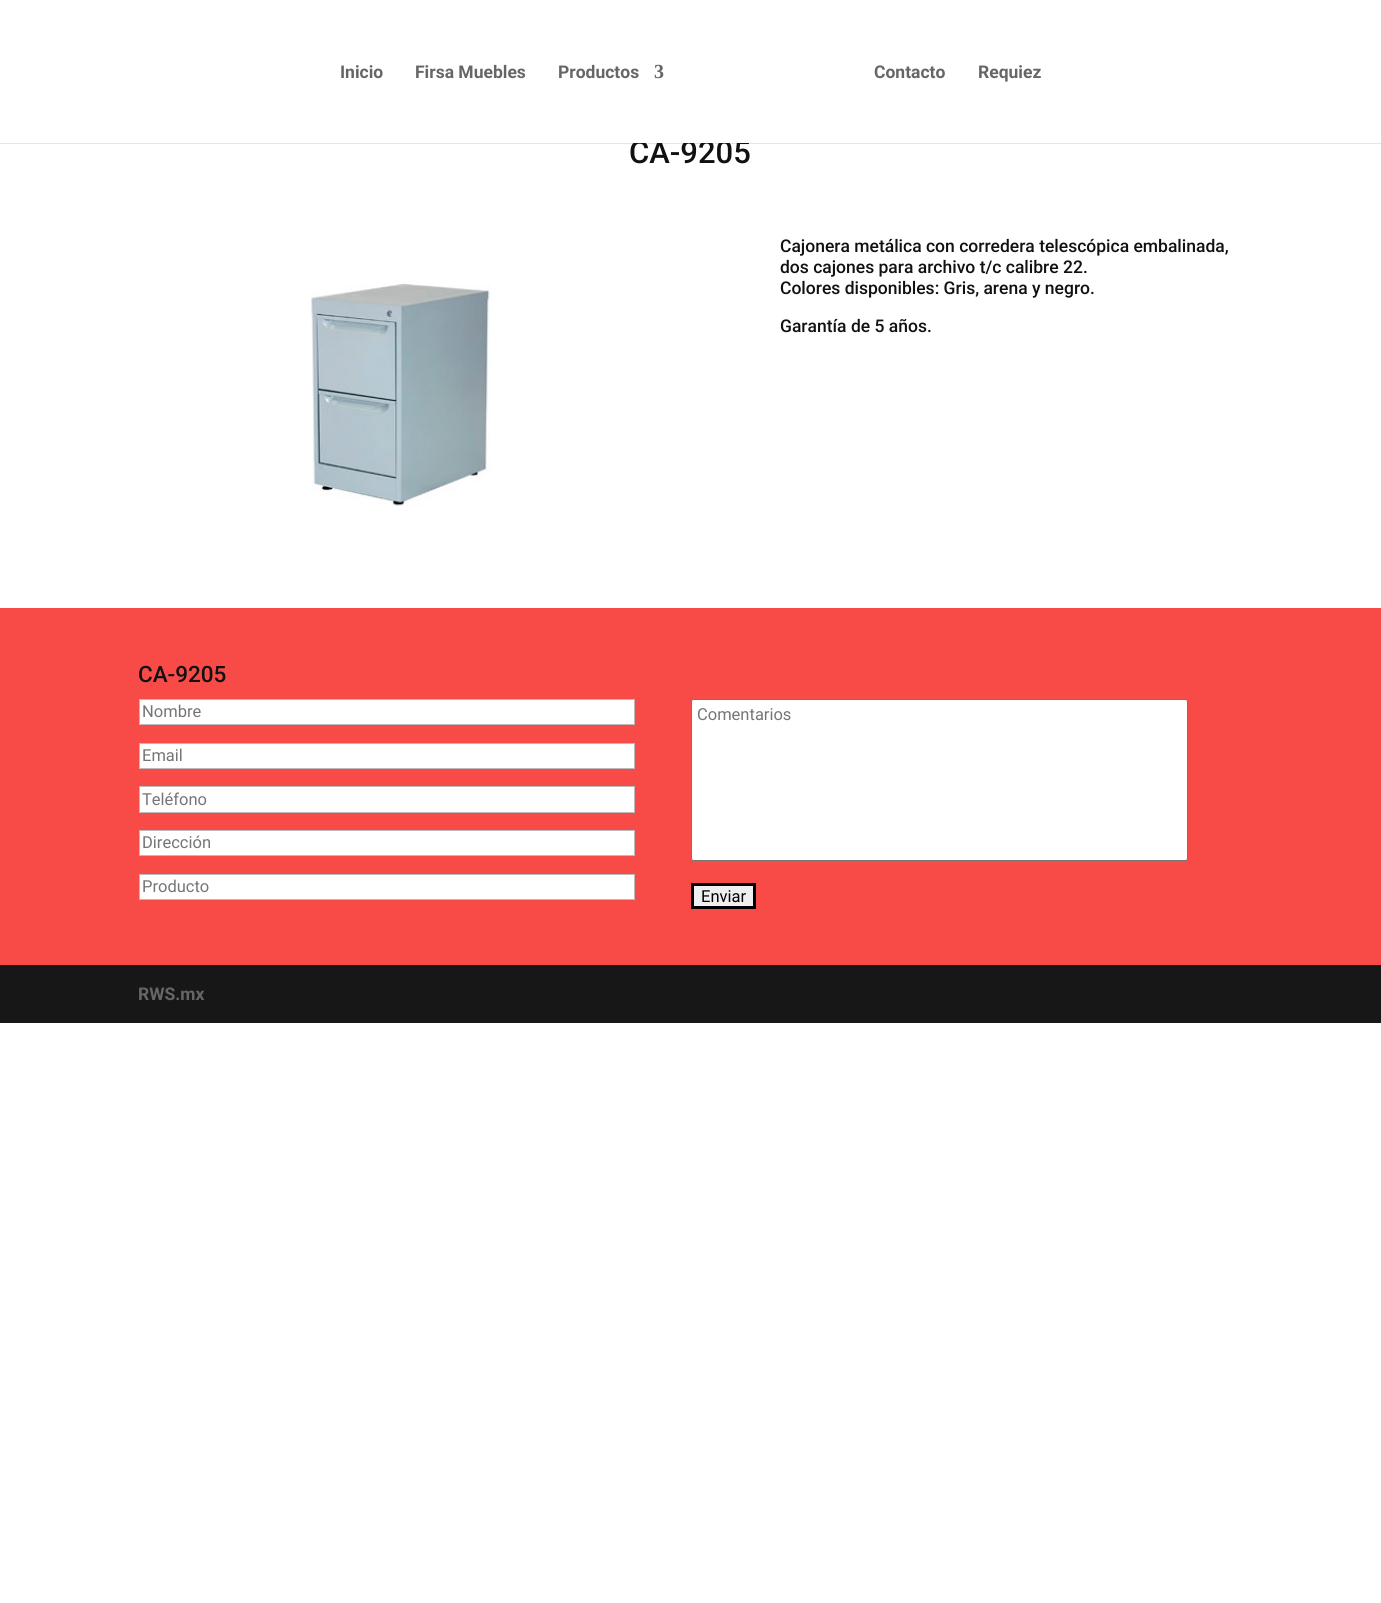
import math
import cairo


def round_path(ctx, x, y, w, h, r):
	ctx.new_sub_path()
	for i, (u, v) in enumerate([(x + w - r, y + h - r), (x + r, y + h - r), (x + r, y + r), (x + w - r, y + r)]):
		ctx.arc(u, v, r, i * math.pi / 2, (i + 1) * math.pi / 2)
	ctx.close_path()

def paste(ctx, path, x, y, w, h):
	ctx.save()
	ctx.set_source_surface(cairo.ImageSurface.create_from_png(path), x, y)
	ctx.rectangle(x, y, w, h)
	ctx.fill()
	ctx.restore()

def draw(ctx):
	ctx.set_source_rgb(1, 1, 1)
	ctx.paint()
	ctx.set_source_rgba(0, 0, 0, 0.1)
	ctx.rectangle(0, 143, 1381, 1)
	ctx.fill()
	ctx.select_font_face('Roboto Medium')
	ctx.set_font_size(31)
	ctx.set_source_rgb(0.067, 0.067, 0.067)
	ctx.move_to(629, 163)
	ctx.show_text('CA-9205')
	ctx.set_source_rgb(1, 1, 1)
	ctx.rectangle(633, 140, 118, 3)
	ctx.fill()
	ctx.select_font_face('Roboto', cairo.FONT_SLANT_NORMAL, cairo.FONT_WEIGHT_BOLD)
	ctx.set_font_size(17.5)
	ctx.set_source_rgb(0.4, 0.4, 0.4)
	for x, y, s in [
		(340, 78, 'Inicio'),
		(415, 78, 'Firsa Muebles'),
		(558, 78, 'Productos'),
	]:
		ctx.move_to(x, y)
		ctx.show_text(s)
	ctx.select_font_face('Liberation Serif', cairo.FONT_SLANT_NORMAL, cairo.FONT_WEIGHT_BOLD)
	ctx.set_font_size(20)
	ctx.move_to(654, 78)
	ctx.show_text('3')
	ctx.select_font_face('Roboto', cairo.FONT_SLANT_NORMAL, cairo.FONT_WEIGHT_BOLD)
	ctx.set_font_size(17.5)
	ctx.move_to(874, 78)
	ctx.show_text('Contacto')
	ctx.move_to(978, 78)
	ctx.show_text('Requiez')
	paste(ctx, 'media/1.png', 311, 279, 180, 227)
	ctx.select_font_face('Roboto Medium')
	ctx.set_source_rgb(0.067, 0.067, 0.067)
	for x, y, s in [
		(780, 252, 'Cajonera metálica con corredera telescópica embalinada,'),
		(780, 273, 'dos cajones para archivo t/c calibre 22.'),
		(780, 294, 'Colores disponibles: Gris, arena y negro.'),
		(780, 332, 'Garantía de 5 años.'),
	]:
		ctx.move_to(x, y)
		ctx.show_text(s)
	ctx.set_source_rgb(0.969, 0.294, 0.278)
	ctx.rectangle(0, 608, 1381, 357)
	ctx.fill()
	ctx.set_font_size(22.5)
	ctx.set_source_rgb(0.067, 0.067, 0.067)
	ctx.move_to(138, 682)
	ctx.show_text('CA-9205')
	ctx.set_source_rgb(1, 1, 1)
	ctx.rectangle(139.5, 699.5, 495, 25)
	ctx.fill_preserve()
	ctx.set_source_rgb(0.733, 0.733, 0.733)
	ctx.set_line_width(1)
	ctx.stroke()
	ctx.select_font_face('Roboto')
	ctx.set_font_size(16.5)
	ctx.set_source_rgb(0.459, 0.459, 0.459)
	ctx.move_to(142, 717)
	ctx.show_text('Nombre')
	ctx.set_source_rgb(1, 1, 1)
	ctx.rectangle(139.5, 743.5, 495, 25)
	ctx.fill_preserve()
	ctx.set_source_rgb(0.733, 0.733, 0.733)
	ctx.stroke()
	ctx.set_source_rgb(0.459, 0.459, 0.459)
	ctx.move_to(142, 761)
	ctx.show_text('Email')
	ctx.set_source_rgb(1, 1, 1)
	ctx.rectangle(139.5, 786.5, 495, 26)
	ctx.fill_preserve()
	ctx.set_source_rgb(0.733, 0.733, 0.733)
	ctx.stroke()
	ctx.set_source_rgb(0.459, 0.459, 0.459)
	ctx.move_to(142, 805)
	ctx.show_text('Teléfono')
	ctx.set_source_rgb(1, 1, 1)
	ctx.rectangle(139.5, 830.5, 495, 25)
	ctx.fill_preserve()
	ctx.set_source_rgb(0.733, 0.733, 0.733)
	ctx.stroke()
	ctx.set_source_rgb(0.459, 0.459, 0.459)
	ctx.move_to(142, 848)
	ctx.show_text('Dirección')
	ctx.set_source_rgb(1, 1, 1)
	ctx.rectangle(139.5, 874.5, 495, 25)
	ctx.fill_preserve()
	ctx.set_source_rgb(0.733, 0.733, 0.733)
	ctx.stroke()
	ctx.set_source_rgb(0.459, 0.459, 0.459)
	ctx.move_to(142, 892)
	ctx.show_text('Producto')
	ctx.set_source_rgb(1, 1, 1)
	round_path(ctx, 691.5, 699.5, 496, 161, 2)
	ctx.fill_preserve()
	ctx.set_source_rgb(0.463, 0.463, 0.463)
	ctx.stroke()
	ctx.set_source_rgb(0.459, 0.459, 0.459)
	ctx.move_to(697, 720)
	ctx.show_text('Comentarios')
	ctx.set_source_rgb(0.937, 0.937, 0.937)
	ctx.rectangle(692.5, 884.5, 62, 23)
	ctx.fill_preserve()
	ctx.set_source_rgb(0, 0, 0)
	ctx.set_line_width(3)
	ctx.stroke()
	ctx.move_to(701, 902)
	ctx.show_text('Enviar')
	ctx.set_source_rgb(0.09, 0.09, 0.09)
	ctx.rectangle(0, 965, 1381, 58)
	ctx.fill()
	ctx.select_font_face('Roboto', cairo.FONT_SLANT_NORMAL, cairo.FONT_WEIGHT_BOLD)
	ctx.set_font_size(17.5)
	ctx.set_source_rgb(0.4, 0.4, 0.4)
	ctx.move_to(138, 1000)
	ctx.show_text('RWS.mx')


surface = cairo.ImageSurface(cairo.FORMAT_RGB24, 1381, 1603)
ctx = cairo.Context(surface)
options = cairo.FontOptions()
options.set_hint_metrics(cairo.HINT_METRICS_OFF)
options.set_hint_style(cairo.HINT_STYLE_NONE)
ctx.set_font_options(options)
ctx.set_miter_limit(4)
draw(ctx)
surface.write_to_png('image.png')
